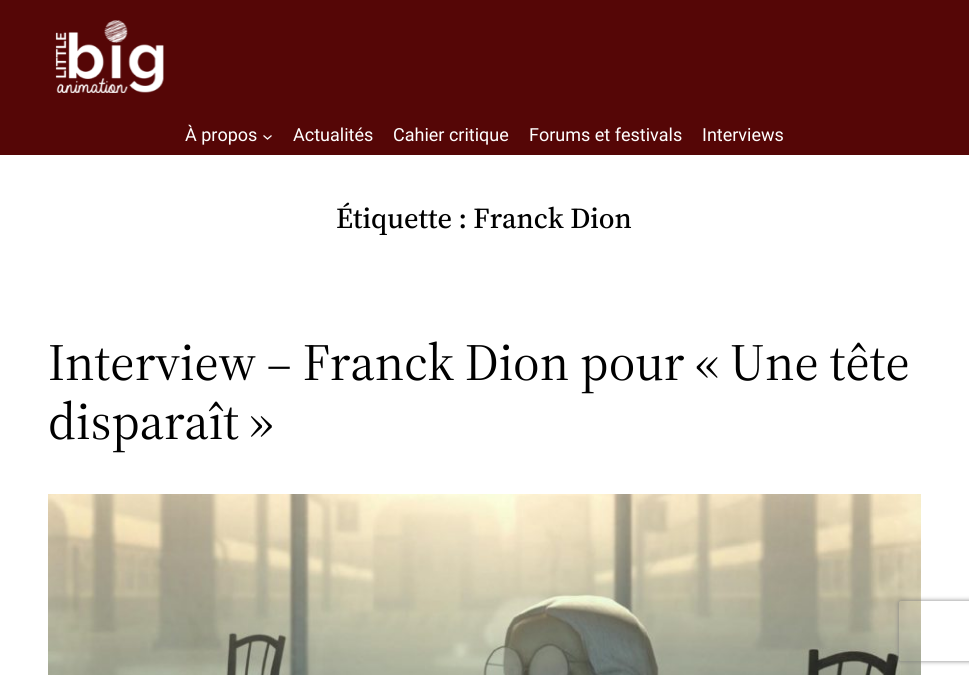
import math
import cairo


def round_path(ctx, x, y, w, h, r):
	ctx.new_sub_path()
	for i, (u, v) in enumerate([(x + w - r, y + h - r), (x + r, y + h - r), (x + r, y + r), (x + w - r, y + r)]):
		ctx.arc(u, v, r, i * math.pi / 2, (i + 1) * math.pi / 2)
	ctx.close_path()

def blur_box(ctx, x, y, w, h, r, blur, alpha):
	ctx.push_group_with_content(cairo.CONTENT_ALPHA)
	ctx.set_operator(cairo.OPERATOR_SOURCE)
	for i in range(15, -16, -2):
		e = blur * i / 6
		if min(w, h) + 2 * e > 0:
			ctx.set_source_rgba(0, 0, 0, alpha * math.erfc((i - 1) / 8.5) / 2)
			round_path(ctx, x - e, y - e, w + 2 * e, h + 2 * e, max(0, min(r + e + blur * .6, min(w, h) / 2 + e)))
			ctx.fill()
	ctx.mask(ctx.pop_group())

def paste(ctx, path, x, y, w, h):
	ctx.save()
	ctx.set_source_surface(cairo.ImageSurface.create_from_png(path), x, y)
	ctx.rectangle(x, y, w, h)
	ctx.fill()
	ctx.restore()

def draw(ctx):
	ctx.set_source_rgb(1, 1, 1)
	ctx.paint()
	ctx.set_source_rgb(0.333, 0.027, 0.027)
	ctx.rectangle(0, 0, 969, 155)
	ctx.fill()
	paste(ctx, 'media/1.png', 55, 20, 109, 73)
	ctx.select_font_face('Roboto')
	ctx.set_font_size(18)
	ctx.set_source_rgb(1, 1, 1)
	ctx.move_to(185, 141)
	ctx.show_text('À propos')
	ctx.new_path()
	ctx.move_to(263.5, 135.5)
	ctx.line_to(267.5, 139)
	ctx.line_to(271.5, 135.5)
	ctx.set_line_width(1.3)
	ctx.stroke()
	for x, y, s in [
		(293, 141, 'Actualités'),
		(393, 141, 'Cahier critique'),
		(529, 141, 'Forums et festivals'),
		(702, 141, 'Interviews'),
	]:
		ctx.move_to(x, y)
		ctx.show_text(s)
	ctx.select_font_face('Source Serif 4 Medium')
	ctx.set_font_size(29)
	ctx.set_source_rgb(0, 0, 0)
	ctx.move_to(336, 228)
	ctx.show_text('Étiquette : Franck Dion')
	ctx.select_font_face('Source Serif 4')
	ctx.set_font_size(52)
	ctx.move_to(48, 380)
	ctx.show_text('Interview – Franck Dion pour « Une tête')
	ctx.move_to(48, 439)
	ctx.show_text('disparaît »')
	paste(ctx, 'media/2.png', 48, 494, 873, 181)
	ctx.save()
	ctx.set_fill_rule(cairo.FILL_RULE_EVEN_ODD)
	ctx.new_path()
	ctx.move_to(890, 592)
	ctx.line_to(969, 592)
	ctx.line_to(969, 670)
	ctx.line_to(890, 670)
	ctx.close_path()
	ctx.move_to(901, 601)
	ctx.line_to(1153, 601)
	ctx.curve_to(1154, 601, 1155, 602, 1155, 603)
	ctx.line_to(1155, 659)
	ctx.curve_to(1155, 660, 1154, 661, 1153, 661)
	ctx.line_to(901, 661)
	ctx.curve_to(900, 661, 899, 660, 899, 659)
	ctx.line_to(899, 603)
	ctx.curve_to(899, 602, 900, 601, 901, 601)
	ctx.close_path()
	ctx.clip()
	ctx.set_source_rgb(0.502, 0.502, 0.502)
	blur_box(ctx, 899, 601, 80, 60, 2, 2.5, 1)
	ctx.restore()


surface = cairo.ImageSurface(cairo.FORMAT_RGB24, 969, 675)
ctx = cairo.Context(surface)
options = cairo.FontOptions()
options.set_hint_metrics(cairo.HINT_METRICS_OFF)
options.set_hint_style(cairo.HINT_STYLE_NONE)
ctx.set_font_options(options)
ctx.set_miter_limit(4)
draw(ctx)
surface.write_to_png('image.png')
